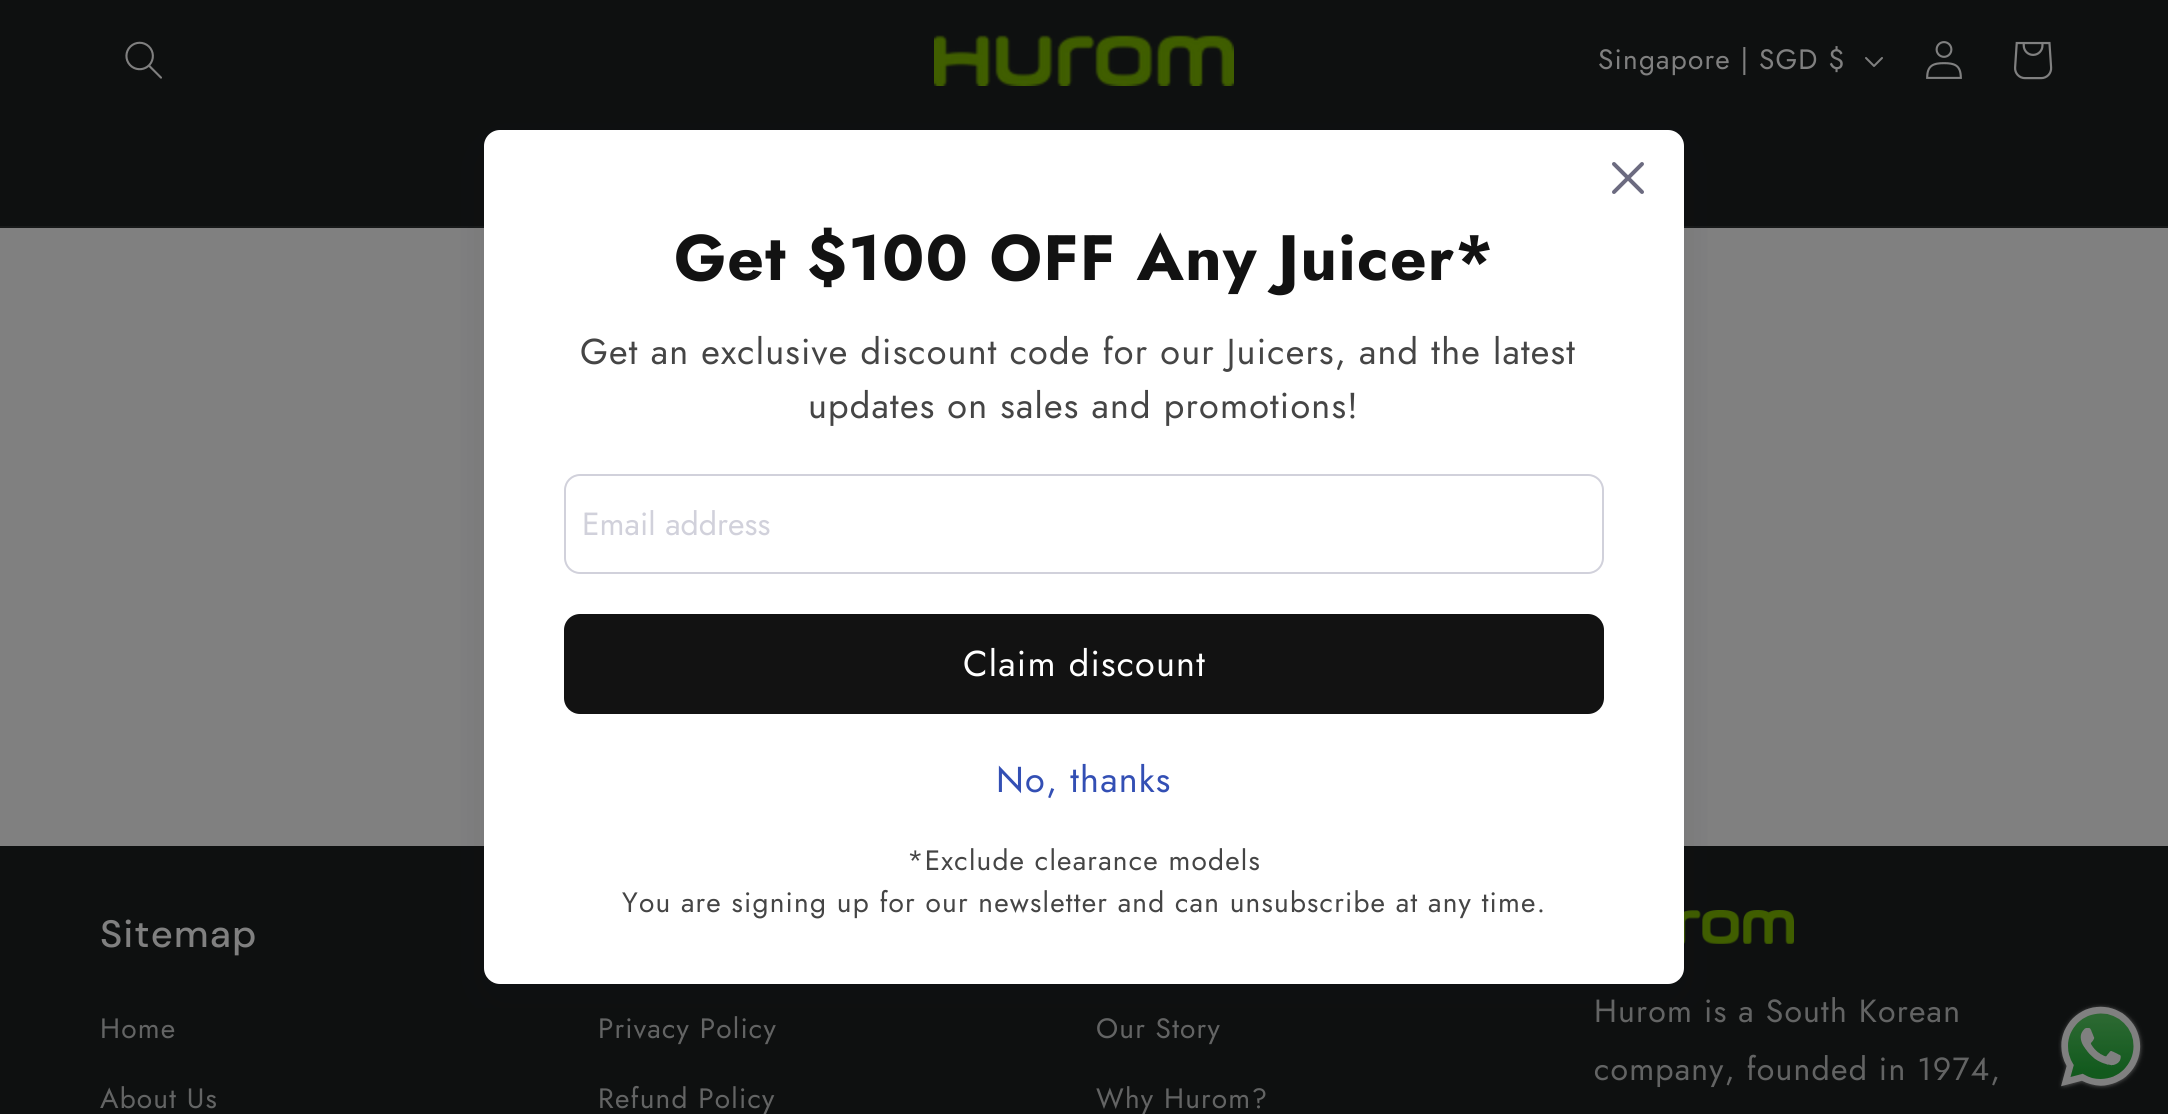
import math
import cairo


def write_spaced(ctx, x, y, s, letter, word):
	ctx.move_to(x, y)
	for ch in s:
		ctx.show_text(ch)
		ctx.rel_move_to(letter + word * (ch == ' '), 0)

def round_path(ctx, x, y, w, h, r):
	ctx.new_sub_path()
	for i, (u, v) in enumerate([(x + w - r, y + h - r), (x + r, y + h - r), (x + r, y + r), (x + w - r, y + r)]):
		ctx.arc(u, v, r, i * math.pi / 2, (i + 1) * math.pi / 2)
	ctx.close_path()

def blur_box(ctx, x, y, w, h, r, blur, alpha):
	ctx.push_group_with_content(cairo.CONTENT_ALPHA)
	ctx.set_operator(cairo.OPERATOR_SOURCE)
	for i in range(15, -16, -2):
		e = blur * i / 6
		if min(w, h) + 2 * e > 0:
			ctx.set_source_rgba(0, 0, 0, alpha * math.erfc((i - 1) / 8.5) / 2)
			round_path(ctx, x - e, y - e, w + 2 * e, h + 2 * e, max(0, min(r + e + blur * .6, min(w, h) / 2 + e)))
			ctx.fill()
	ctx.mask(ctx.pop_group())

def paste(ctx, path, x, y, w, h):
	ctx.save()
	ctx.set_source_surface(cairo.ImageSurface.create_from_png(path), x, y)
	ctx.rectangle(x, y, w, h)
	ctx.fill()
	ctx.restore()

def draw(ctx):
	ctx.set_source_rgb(0.502, 0.502, 0.502)
	ctx.paint()
	ctx.set_source_rgb(0.055, 0.063, 0.063)
	ctx.rectangle(0, 0, 2168, 226)
	ctx.fill()
	ctx.set_source_rgb(0.09, 0.098, 0.098)
	ctx.rectangle(0, 226, 2168, 2)
	ctx.fill()
	paste(ctx, 'media/1.png', 125, 41, 37, 38)
	paste(ctx, 'media/2.png', 934, 35, 300, 51)
	ctx.select_font_face('Jost')
	ctx.set_font_size(28)
	ctx.set_source_rgb(0.502, 0.502, 0.502)
	write_spaced(ctx, 1598, 69, 'Singapore | SGD $', 1.2, 0)
	paste(ctx, 'media/3.png', 1865, 57, 18, 10)
	paste(ctx, 'media/4.png', 1926, 41, 36, 38)
	paste(ctx, 'media/5.png', 2014, 41, 39, 39)
	ctx.set_source_rgb(0.055, 0.063, 0.063)
	ctx.rectangle(0, 846, 2168, 268)
	ctx.fill()
	paste(ctx, 'media/7.png', 1684, 910, 110, 34)
	ctx.save()
	ctx.rectangle(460, 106, 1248, 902)
	ctx.clip()
	ctx.set_source_rgb(0.071, 0.067, 0.153)
	blur_box(ctx, 484, 146, 1200, 854, 16, 20, 0.1)
	ctx.restore()
	ctx.set_source_rgb(1, 1, 1)
	round_path(ctx, 484, 130, 1200, 854, 16)
	ctx.fill()
	paste(ctx, 'media/6.png', 1612, 162, 32, 32)
	ctx.select_font_face('Jost', cairo.FONT_SLANT_NORMAL, cairo.FONT_WEIGHT_BOLD)
	ctx.set_font_size(64)
	ctx.set_source_rgb(0.071, 0.071, 0.071)
	write_spaced(ctx, 674, 280, 'Get $100 OFF Any Juicer*', 1.2, 0)
	ctx.select_font_face('Jost')
	ctx.set_font_size(36)
	ctx.set_source_rgb(0.271, 0.271, 0.271)
	write_spaced(ctx, 580, 364, 'Get an exclusive discount code for our Juicers, and the latest', 1.2, 0)
	write_spaced(ctx, 808, 418, 'updates on sales and promotions!', 1.2, 0)
	round_path(ctx, 565, 475, 1038, 98, 15)
	ctx.set_source_rgb(0.82, 0.82, 0.859)
	ctx.stroke()
	ctx.set_font_size(32)
	ctx.move_to(582, 535)
	ctx.show_text('Email address')
	ctx.set_source_rgb(0.071, 0.071, 0.071)
	round_path(ctx, 564, 614, 1040, 100, 16)
	ctx.fill()
	ctx.set_font_size(36)
	ctx.set_source_rgb(1, 1, 1)
	write_spaced(ctx, 963, 676, 'Claim discount', 1.2, 0)
	ctx.set_source_rgb(0.2, 0.31, 0.706)
	write_spaced(ctx, 996, 792, 'No, thanks', 1.2, 0)
	ctx.set_font_size(28)
	ctx.set_source_rgb(0.271, 0.271, 0.271)
	write_spaced(ctx, 907, 870, '*Exclude clearance models', 1.2, 0)
	write_spaced(ctx, 622, 912, 'You are signing up for our newsletter and can unsubscribe at any time.', 1.2, 0)
	ctx.select_font_face('DM Sans Medium')
	ctx.set_font_size(38)
	ctx.set_source_rgb(0.502, 0.502, 0.502)
	write_spaced(ctx, 100, 947, 'Sitemap', 1.25, 0)
	ctx.select_font_face('Jost')
	ctx.set_font_size(28)
	ctx.set_source_rgb(0.388, 0.392, 0.392)
	for x, y, s in [
		(100, 1038, 'Home'),
		(100, 1108, 'About Us'),
		(598, 1038, 'Privacy Policy'),
		(598, 1108, 'Refund Policy'),
		(1096, 1038, 'Our Story'),
		(1096, 1108, 'Why Hurom?'),
	]:
		write_spaced(ctx, x, y, s, 1.2, 0)
	ctx.set_font_size(32)
	write_spaced(ctx, 1594, 1022, 'Hurom is a South Korean', 1.2, 0)
	write_spaced(ctx, 1594, 1080, 'company, founded in 1974,', 1.2, 0)
	paste(ctx, 'media/8.png', 2058, 1003, 87, 87)


surface = cairo.ImageSurface(cairo.FORMAT_RGB24, 2168, 1114)
ctx = cairo.Context(surface)
options = cairo.FontOptions()
options.set_hint_metrics(cairo.HINT_METRICS_OFF)
options.set_hint_style(cairo.HINT_STYLE_NONE)
ctx.set_font_options(options)
ctx.set_miter_limit(4)
draw(ctx)
surface.write_to_png('image.png')
